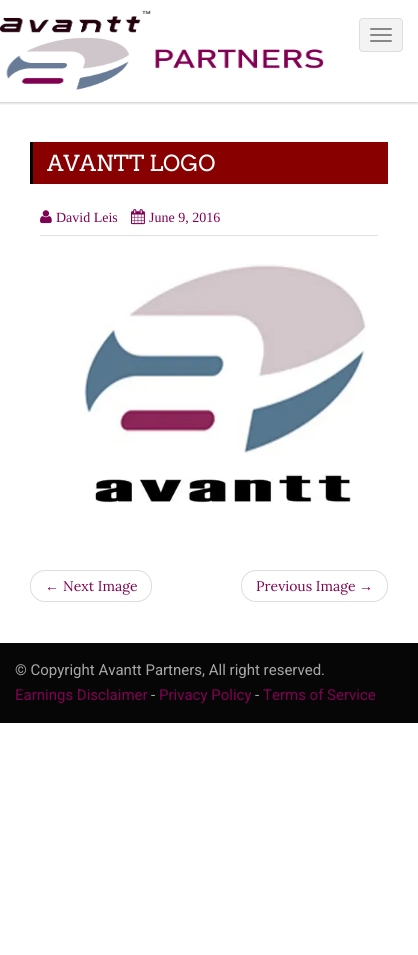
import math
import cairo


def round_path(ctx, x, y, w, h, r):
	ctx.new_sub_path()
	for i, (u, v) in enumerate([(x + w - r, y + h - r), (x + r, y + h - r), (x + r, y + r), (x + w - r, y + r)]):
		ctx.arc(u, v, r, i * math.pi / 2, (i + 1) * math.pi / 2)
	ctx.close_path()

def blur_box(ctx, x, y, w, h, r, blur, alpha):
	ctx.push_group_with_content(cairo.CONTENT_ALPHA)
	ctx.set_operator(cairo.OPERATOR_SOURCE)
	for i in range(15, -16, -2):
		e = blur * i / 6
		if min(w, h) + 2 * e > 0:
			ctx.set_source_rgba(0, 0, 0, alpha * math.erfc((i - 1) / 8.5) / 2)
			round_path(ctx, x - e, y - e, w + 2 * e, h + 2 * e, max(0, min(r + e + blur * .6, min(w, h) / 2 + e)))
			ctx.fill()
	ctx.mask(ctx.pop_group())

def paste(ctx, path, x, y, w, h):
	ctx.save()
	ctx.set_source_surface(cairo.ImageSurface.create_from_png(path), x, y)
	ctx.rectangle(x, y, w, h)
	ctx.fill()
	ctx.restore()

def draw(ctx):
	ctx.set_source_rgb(1, 1, 1)
	ctx.paint()
	ctx.save()
	ctx.rectangle(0, 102, 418, 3)
	ctx.clip()
	ctx.set_source_rgb(0, 0, 0)
	blur_box(ctx, 0, 1, 418, 102, 0, 1.5, 0.23)
	ctx.restore()
	paste(ctx, 'media/1.png', 0, 10, 324, 80)
	ctx.set_source_rgb(0.953, 0.953, 0.953)
	round_path(ctx, 359.5, 18.5, 43, 33, 3.5)
	ctx.fill_preserve()
	ctx.set_source_rgb(0.867, 0.867, 0.867)
	ctx.set_line_width(1)
	ctx.stroke()
	ctx.set_source_rgb(0.533, 0.533, 0.533)
	round_path(ctx, 370, 28, 22, 2, 1)
	ctx.fill()
	round_path(ctx, 370, 34, 22, 2, 1)
	ctx.fill()
	round_path(ctx, 370, 40, 22, 2, 1)
	ctx.fill()
	ctx.set_source_rgb(0.533, 0, 0)
	ctx.rectangle(33, 142, 355, 42)
	ctx.fill()
	ctx.set_source_rgb(0, 0, 0)
	ctx.rectangle(30, 142, 3, 42)
	ctx.fill()
	ctx.select_font_face('Arvo')
	ctx.set_font_size(22)
	ctx.set_source_rgb(1, 1, 1)
	ctx.move_to(47, 171)
	ctx.show_text('AVANTT LOGO')
	ctx.set_source_rgb(0.875, 0.875, 0.875)
	ctx.rectangle(40, 235, 338, 1)
	ctx.fill()
	paste(ctx, 'media/2.png', 40, 210, 12, 14)
	ctx.select_font_face('Liberation Serif')
	ctx.set_font_size(14)
	ctx.set_source_rgb(0.502, 0, 0.322)
	ctx.move_to(56, 222)
	ctx.show_text('David Leis')
	paste(ctx, 'media/3.png', 131, 209, 14, 16)
	ctx.move_to(149, 222)
	ctx.show_text('June 9, 2016')
	paste(ctx, 'media/4.png', 84, 263, 282, 240)
	round_path(ctx, 30.5, 570.5, 121, 31, 14.5)
	ctx.set_source_rgb(0.867, 0.867, 0.867)
	ctx.stroke()
	ctx.set_source_rgb(0.502, 0, 0.322)
	ctx.move_to(45, 591)
	ctx.show_text('←')
	ctx.select_font_face('Lora')
	ctx.move_to(63, 591)
	ctx.show_text('Next Image')
	round_path(ctx, 241.5, 570.5, 146, 31, 14.5)
	ctx.set_source_rgb(0.867, 0.867, 0.867)
	ctx.stroke()
	ctx.set_source_rgb(0.502, 0, 0.322)
	ctx.move_to(256, 591)
	ctx.show_text('Previous Image')
	ctx.select_font_face('Liberation Serif')
	ctx.move_to(359, 591)
	ctx.show_text('→')
	ctx.set_source_rgb(0.024, 0.024, 0.024)
	ctx.rectangle(0, 643, 418, 80)
	ctx.fill()
	ctx.select_font_face('Roboto')
	ctx.set_font_size(15)
	ctx.set_source_rgb(0.655, 0.655, 0.655)
	ctx.move_to(15, 675)
	ctx.show_text('© Copyright Avantt Partners, All right reserved.')
	ctx.set_source_rgb(0.502, 0, 0.322)
	ctx.move_to(15, 700)
	ctx.show_text('Earnings Disclaimer')
	ctx.set_source_rgb(0.655, 0.655, 0.655)
	ctx.move_to(151, 700)
	ctx.show_text('-')
	ctx.set_source_rgb(0.502, 0, 0.322)
	ctx.move_to(159, 700)
	ctx.show_text('Privacy Policy')
	ctx.set_source_rgb(0.655, 0.655, 0.655)
	ctx.move_to(255, 700)
	ctx.show_text('-')
	ctx.set_source_rgb(0.502, 0, 0.322)
	ctx.move_to(263, 700)
	ctx.show_text('Terms of Service')


surface = cairo.ImageSurface(cairo.FORMAT_RGB24, 418, 955)
ctx = cairo.Context(surface)
options = cairo.FontOptions()
options.set_hint_metrics(cairo.HINT_METRICS_OFF)
options.set_hint_style(cairo.HINT_STYLE_NONE)
ctx.set_font_options(options)
ctx.set_miter_limit(4)
draw(ctx)
surface.write_to_png('image.png')
